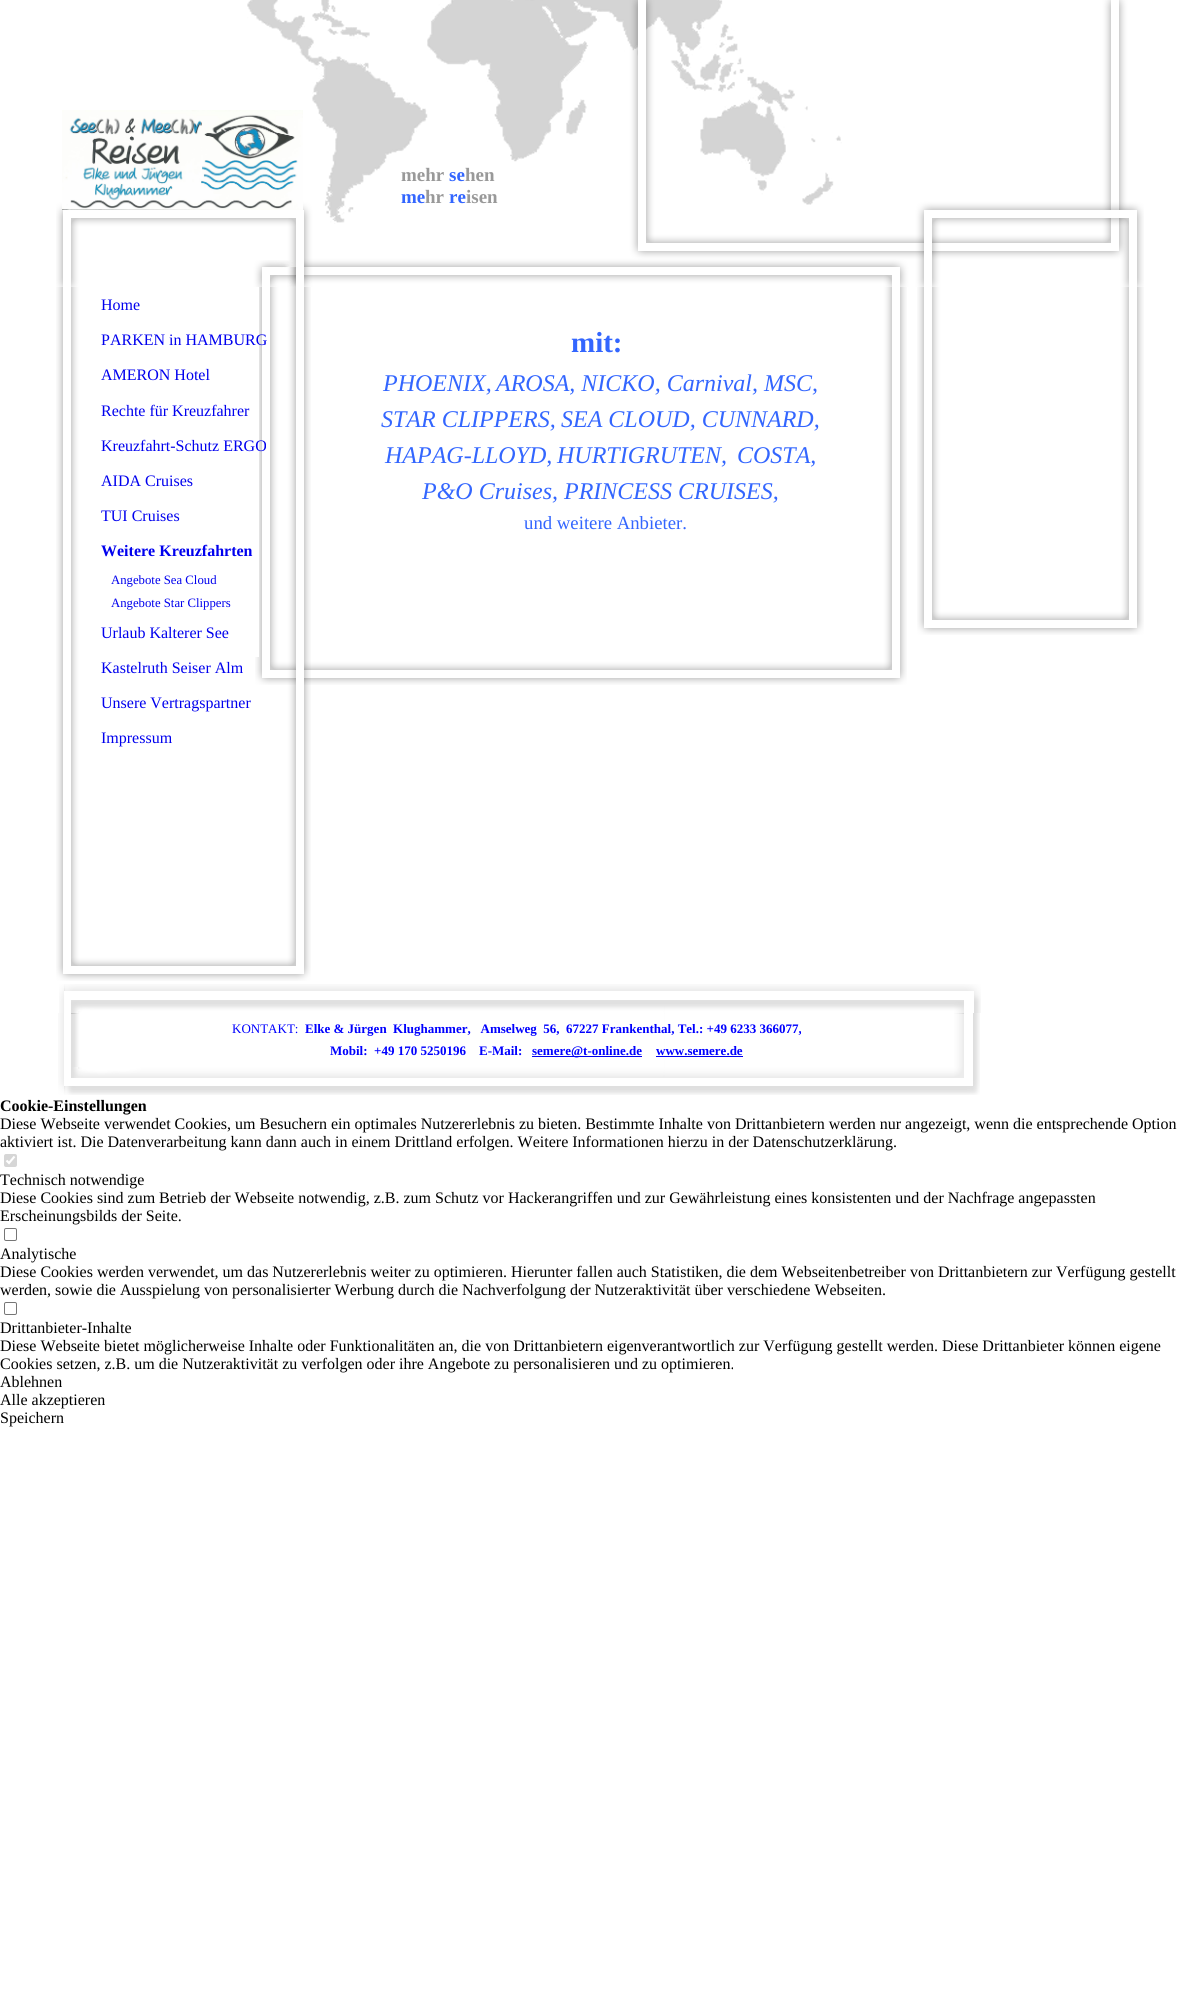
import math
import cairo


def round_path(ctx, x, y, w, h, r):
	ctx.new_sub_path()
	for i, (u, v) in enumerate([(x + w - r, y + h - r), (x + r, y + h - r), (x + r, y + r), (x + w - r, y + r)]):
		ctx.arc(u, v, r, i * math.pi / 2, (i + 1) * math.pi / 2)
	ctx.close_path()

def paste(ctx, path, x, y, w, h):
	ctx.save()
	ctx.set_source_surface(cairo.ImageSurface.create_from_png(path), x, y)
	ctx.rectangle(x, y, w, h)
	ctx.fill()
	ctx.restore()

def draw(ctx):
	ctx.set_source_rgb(1, 1, 1)
	ctx.paint()
	paste(ctx, 'media/1.png', 56, 0, 1088, 287)
	paste(ctx, 'media/2.png', 62, 110, 241, 100)
	ctx.select_font_face('Liberation Serif', cairo.FONT_SLANT_NORMAL, cairo.FONT_WEIGHT_BOLD)
	ctx.set_font_size(19)
	ctx.set_source_rgb(0.6, 0.6, 0.6)
	ctx.move_to(401, 181)
	ctx.show_text('mehr')
	ctx.set_source_rgb(0.2, 0.4, 1)
	ctx.move_to(449, 181)
	ctx.show_text('se')
	ctx.set_source_rgb(0.6, 0.6, 0.6)
	ctx.move_to(465, 181)
	ctx.show_text('hen')
	ctx.set_source_rgb(0.2, 0.4, 1)
	ctx.move_to(401, 203)
	ctx.show_text('me')
	ctx.set_source_rgb(0.6, 0.6, 0.6)
	ctx.move_to(425, 203)
	ctx.show_text('hr')
	ctx.set_source_rgb(0.2, 0.4, 1)
	ctx.move_to(449, 203)
	ctx.show_text('re')
	ctx.set_source_rgb(0.6, 0.6, 0.6)
	ctx.move_to(466, 203)
	ctx.show_text('isen')
	paste(ctx, 'media/5.png', 270, 275, 26, 12)
	paste(ctx, 'media/3.png', 71, 218, 225, 69)
	paste(ctx, 'media/4.png', 932, 218, 197, 69)
	paste(ctx, 'media/6.png', 304, 275, 588, 12)
	paste(ctx, 'media/11.png', 259, 287, 648, 370)
	paste(ctx, 'media/12.png', 270, 287, 622, 370)
	paste(ctx, 'media/13.png', 255, 657, 652, 28)
	paste(ctx, 'media/14.png', 270, 657, 622, 13)
	paste(ctx, 'media/7.png', 56, 287, 255, 666)
	paste(ctx, 'media/8.png', 71, 287, 225, 666)
	ctx.select_font_face('Liberation Serif')
	ctx.set_font_size(16)
	ctx.set_source_rgb(0, 0, 0.933)
	for x, y, s in [
		(101, 310, 'Home'),
		(101, 345, 'PARKEN in HAMBURG'),
		(101, 380, 'AMERON Hotel'),
		(101, 416, 'Rechte für Kreuzfahrer'),
		(101, 451, 'Kreuzfahrt-Schutz ERGO'),
		(101, 486, 'AIDA Cruises'),
		(101, 521, 'TUI Cruises'),
	]:
		ctx.move_to(x, y)
		ctx.show_text(s)
	ctx.select_font_face('Liberation Serif', cairo.FONT_SLANT_NORMAL, cairo.FONT_WEIGHT_BOLD)
	ctx.move_to(101, 556)
	ctx.show_text('Weitere Kreuzfahrten')
	ctx.select_font_face('Liberation Serif')
	ctx.set_font_size(12.75)
	ctx.move_to(111, 584)
	ctx.show_text('Angebote Sea Cloud')
	ctx.move_to(111, 607)
	ctx.show_text('Angebote Star Clippers')
	ctx.set_font_size(16)
	for x, y, s in [
		(101, 638, 'Urlaub Kalterer See'),
		(101, 673, 'Kastelruth Seiser Alm'),
		(101, 708, 'Unsere Vertragspartner'),
		(101, 743, 'Impressum'),
	]:
		ctx.move_to(x, y)
		ctx.show_text(s)
	paste(ctx, 'media/9.png', 56, 953, 255, 28)
	paste(ctx, 'media/10.png', 71, 953, 225, 13)
	ctx.select_font_face('Liberation Serif', cairo.FONT_SLANT_NORMAL, cairo.FONT_WEIGHT_BOLD)
	ctx.set_font_size(29)
	ctx.set_source_rgb(0.2, 0.4, 1)
	ctx.move_to(571, 352)
	ctx.show_text('mit:')
	ctx.select_font_face('Liberation Serif', cairo.FONT_SLANT_ITALIC)
	ctx.set_font_size(24)
	for x, y, s in [
		(383, 391, 'PHOENIX,'),
		(496, 391, 'AROSA, NICKO, Carnival, MSC,'),
		(381, 427, 'STAR CLIPPERS,'),
		(561, 427, 'SEA CLOUD, CUNNARD,'),
		(385, 463, 'HAPAG-LLOYD,'),
		(557, 463, 'HURTIGRUTEN,'),
		(737, 463, 'COSTA,'),
		(422, 499, 'P&O Cruises, PRINCESS CRUISES,'),
	]:
		ctx.move_to(x, y)
		ctx.show_text(s)
	ctx.select_font_face('Liberation Serif')
	ctx.set_font_size(18.75)
	ctx.move_to(524, 529)
	ctx.show_text('und weitere Anbieter.')
	paste(ctx, 'media/15.png', 917, 287, 227, 320)
	paste(ctx, 'media/16.png', 932, 287, 197, 320)
	paste(ctx, 'media/17.png', 917, 607, 227, 28)
	paste(ctx, 'media/18.png', 932, 607, 197, 13)
	paste(ctx, 'media/19.png', 59, 984, 922, 29)
	paste(ctx, 'media/21.png', 58, 1013, 922, 54)
	paste(ctx, 'media/20.png', 71, 1000, 893, 14)
	paste(ctx, 'media/22.png', 71, 1013, 893, 54)
	ctx.set_font_size(13)
	ctx.set_source_rgb(0, 0, 1)
	ctx.move_to(232, 1033)
	ctx.show_text('KONTAKT:')
	ctx.select_font_face('Liberation Serif', cairo.FONT_SLANT_NORMAL, cairo.FONT_WEIGHT_BOLD)
	ctx.move_to(305, 1033)
	ctx.show_text('Elke & Jürgen  Klughammer,   Amselweg  56,  67227 Frankenthal, Tel.: +49 6233 366077,')
	ctx.move_to(330, 1055)
	ctx.show_text('Mobil:  +49 170 5250196    E-Mail:')
	ctx.set_source_rgb(0, 0, 0.933)
	ctx.rectangle(532, 1056, 110, 1)
	ctx.fill()
	ctx.set_source_rgb(0, 0, 1)
	ctx.move_to(532, 1055)
	ctx.show_text('semere@t-online.de')
	ctx.move_to(656, 1055)
	ctx.show_text('www.semere.de')
	ctx.set_source_rgb(0, 0, 0.933)
	ctx.rectangle(656, 1056, 87, 1)
	ctx.fill()
	paste(ctx, 'media/23.png', 58, 1067, 922, 28)
	paste(ctx, 'media/24.png', 71, 1067, 893, 11)
	ctx.set_font_size(16)
	ctx.set_source_rgb(0, 0, 0)
	ctx.move_to(0, 1111)
	ctx.show_text('Cookie-Einstellungen')
	ctx.select_font_face('Liberation Serif')
	ctx.move_to(0, 1129)
	ctx.show_text('Diese Webseite verwendet Cookies, um Besuchern ein optimales Nutzererlebnis zu bieten. Bestimmte Inhalte von Drittanbietern werden nur angezeigt, wenn die entsprechende Option')
	ctx.move_to(0, 1147)
	ctx.show_text('aktiviert ist. Die Datenverarbeitung kann dann auch in einem Drittland erfolgen. Weitere Informationen hierzu in der Datenschutzerklärung.')
	ctx.set_source_rgb(0.839, 0.839, 0.839)
	round_path(ctx, 4, 1154, 13, 13, 2)
	ctx.fill()
	ctx.new_path()
	ctx.move_to(6.5, 1160.5)
	ctx.line_to(9, 1163)
	ctx.line_to(14.5, 1156.5)
	ctx.set_source_rgb(1, 1, 1)
	ctx.set_line_width(2.1)
	ctx.stroke()
	ctx.set_source_rgb(0, 0, 0)
	for x, y, s in [
		(0, 1185, 'Technisch notwendige'),
		(0, 1203, 'Diese Cookies sind zum Betrieb der Webseite notwendig, z.B. zum Schutz vor Hackerangriffen und zur Gewährleistung eines konsistenten und der Nachfrage angepassten'),
		(0, 1221, 'Erscheinungsbilds der Seite.'),
	]:
		ctx.move_to(x, y)
		ctx.show_text(s)
	round_path(ctx, 4.5, 1228.5, 12, 12, 1.5)
	ctx.set_source_rgb(0.463, 0.463, 0.463)
	ctx.set_line_width(1)
	ctx.stroke()
	ctx.set_source_rgb(0, 0, 0)
	for x, y, s in [
		(0, 1259, 'Analytische'),
		(0, 1277, 'Diese Cookies werden verwendet, um das Nutzererlebnis weiter zu optimieren. Hierunter fallen auch Statistiken, die dem Webseitenbetreiber von Drittanbietern zur Verfügung gestellt'),
		(0, 1295, 'werden, sowie die Ausspielung von personalisierter Werbung durch die Nachverfolgung der Nutzeraktivität über verschiedene Webseiten.'),
	]:
		ctx.move_to(x, y)
		ctx.show_text(s)
	round_path(ctx, 4.5, 1302.5, 12, 12, 1.5)
	ctx.set_source_rgb(0.463, 0.463, 0.463)
	ctx.stroke()
	ctx.set_source_rgb(0, 0, 0)
	for x, y, s in [
		(0, 1333, 'Drittanbieter-Inhalte'),
		(0, 1351, 'Diese Webseite bietet möglicherweise Inhalte oder Funktionalitäten an, die von Drittanbietern eigenverantwortlich zur Verfügung gestellt werden. Diese Drittanbieter können eigene'),
		(0, 1369, 'Cookies setzen, z.B. um die Nutzeraktivität zu verfolgen oder ihre Angebote zu personalisieren und zu optimieren.'),
		(0, 1387, 'Ablehnen'),
		(0, 1405, 'Alle akzeptieren'),
		(0, 1423, 'Speichern'),
	]:
		ctx.move_to(x, y)
		ctx.show_text(s)


surface = cairo.ImageSurface(cairo.FORMAT_RGB24, 1189, 1993)
ctx = cairo.Context(surface)
options = cairo.FontOptions()
options.set_hint_metrics(cairo.HINT_METRICS_OFF)
options.set_hint_style(cairo.HINT_STYLE_NONE)
ctx.set_font_options(options)
ctx.set_miter_limit(4)
draw(ctx)
surface.write_to_png('image.png')
